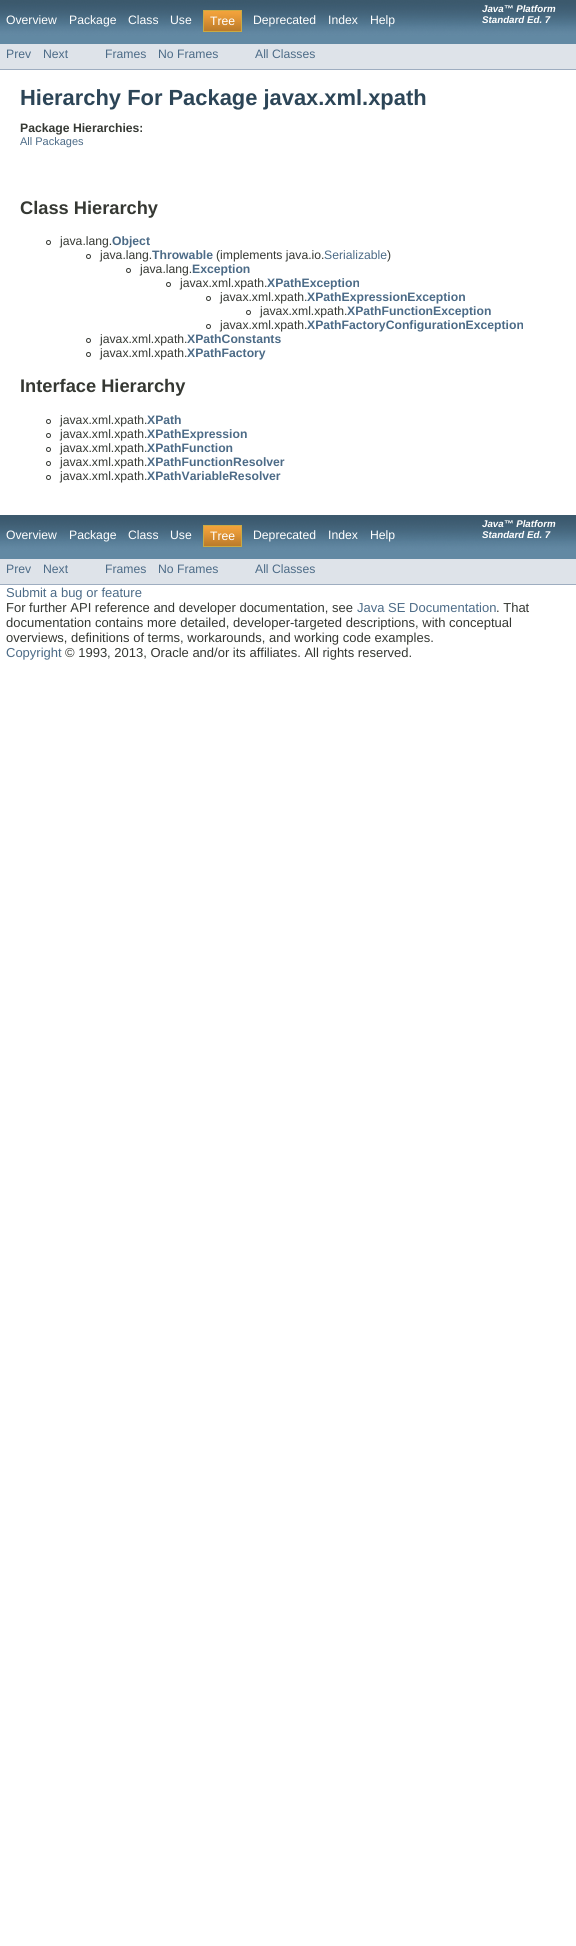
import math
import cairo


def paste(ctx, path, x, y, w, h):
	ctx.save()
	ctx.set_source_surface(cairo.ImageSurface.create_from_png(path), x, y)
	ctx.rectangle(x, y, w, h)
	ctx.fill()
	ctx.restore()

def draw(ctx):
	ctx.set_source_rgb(1, 1, 1)
	ctx.paint()
	paste(ctx, 'media/1.png', 0, 0, 576, 44)
	ctx.select_font_face('Liberation Sans')
	ctx.set_font_size(12.2)
	ctx.set_source_rgb(1, 1, 1)
	for x, y, s in [
		(6, 24, 'Overview'),
		(69, 24, 'Package'),
		(128, 24, 'Class'),
		(170, 24, 'Use'),
	]:
		ctx.move_to(x, y)
		ctx.show_text(s)
	paste(ctx, 'media/2.png', 204, 11, 37, 20)
	ctx.rectangle(203.5, 10.5, 38, 21)
	ctx.set_source_rgb(0.788, 0.667, 0.267)
	ctx.set_line_width(1)
	ctx.stroke()
	ctx.set_source_rgb(1, 1, 1)
	for x, y, s in [
		(210, 25, 'Tree'),
		(253, 24, 'Deprecated'),
		(328, 24, 'Index'),
		(370, 24, 'Help'),
	]:
		ctx.move_to(x, y)
		ctx.show_text(s)
	ctx.select_font_face('Liberation Sans', cairo.FONT_SLANT_ITALIC, cairo.FONT_WEIGHT_BOLD)
	ctx.set_font_size(9.75)
	ctx.move_to(482, 12)
	ctx.show_text('Java™ Platform')
	ctx.move_to(482, 23)
	ctx.show_text('Standard Ed. 7')
	ctx.set_source_rgb(0.871, 0.89, 0.914)
	ctx.rectangle(0, 44, 576, 25)
	ctx.fill()
	ctx.set_source_rgb(0.62, 0.678, 0.753)
	ctx.rectangle(0, 69, 576, 1)
	ctx.fill()
	ctx.select_font_face('Liberation Sans')
	ctx.set_font_size(12.2)
	ctx.set_source_rgb(0.298, 0.42, 0.529)
	for x, y, s in [
		(6, 58, 'Prev'),
		(43, 58, 'Next'),
		(105, 58, 'Frames'),
		(158, 58, 'No Frames'),
		(255, 58, 'All Classes'),
	]:
		ctx.move_to(x, y)
		ctx.show_text(s)
	ctx.select_font_face('Liberation Sans', cairo.FONT_SLANT_NORMAL, cairo.FONT_WEIGHT_BOLD)
	ctx.set_font_size(21.9)
	ctx.set_source_rgb(0.173, 0.271, 0.341)
	ctx.move_to(20, 105)
	ctx.show_text('Hierarchy For Package javax.xml.xpath')
	ctx.set_font_size(12.2)
	ctx.set_source_rgb(0.208, 0.22, 0.2)
	ctx.move_to(20, 132)
	ctx.show_text('Package Hierarchies:')
	ctx.select_font_face('Liberation Sans')
	ctx.set_font_size(11)
	ctx.set_source_rgb(0.298, 0.42, 0.529)
	ctx.move_to(20, 145)
	ctx.show_text('All Packages')
	ctx.select_font_face('Liberation Sans', cairo.FONT_SLANT_NORMAL, cairo.FONT_WEIGHT_BOLD)
	ctx.set_font_size(18.25)
	ctx.set_source_rgb(0.208, 0.22, 0.2)
	ctx.move_to(20, 214)
	ctx.show_text('Class Hierarchy')
	ctx.new_path()
	ctx.arc(48.5, 242.5, 2, 0, 2 * math.pi)
	ctx.stroke()
	ctx.select_font_face('Liberation Sans')
	ctx.set_font_size(12.2)
	ctx.move_to(60, 245)
	ctx.show_text('java.lang.')
	ctx.select_font_face('Liberation Sans', cairo.FONT_SLANT_NORMAL, cairo.FONT_WEIGHT_BOLD)
	ctx.set_source_rgb(0.298, 0.42, 0.529)
	ctx.move_to(112, 245)
	ctx.show_text('Object')
	ctx.new_path()
	ctx.arc(88.5, 256.5, 2, 0, 2 * math.pi)
	ctx.set_source_rgb(0.208, 0.22, 0.2)
	ctx.stroke()
	ctx.select_font_face('Liberation Sans')
	ctx.move_to(100, 259)
	ctx.show_text('java.lang.')
	ctx.select_font_face('Liberation Sans', cairo.FONT_SLANT_NORMAL, cairo.FONT_WEIGHT_BOLD)
	ctx.set_source_rgb(0.298, 0.42, 0.529)
	ctx.move_to(152, 259)
	ctx.show_text('Throwable')
	ctx.select_font_face('Liberation Sans')
	ctx.set_source_rgb(0.208, 0.22, 0.2)
	ctx.move_to(216, 259)
	ctx.show_text('(implements java.io.')
	ctx.set_source_rgb(0.298, 0.42, 0.529)
	ctx.move_to(324, 259)
	ctx.show_text('Serializable')
	ctx.set_source_rgb(0.208, 0.22, 0.2)
	ctx.move_to(387, 259)
	ctx.show_text(')')
	ctx.new_path()
	ctx.arc(128.5, 270.5, 2, 0, 2 * math.pi)
	ctx.stroke()
	ctx.move_to(140, 273)
	ctx.show_text('java.lang.')
	ctx.select_font_face('Liberation Sans', cairo.FONT_SLANT_NORMAL, cairo.FONT_WEIGHT_BOLD)
	ctx.set_source_rgb(0.298, 0.42, 0.529)
	ctx.move_to(192, 273)
	ctx.show_text('Exception')
	ctx.new_path()
	ctx.arc(168.5, 284.5, 2, 0, 2 * math.pi)
	ctx.set_source_rgb(0.208, 0.22, 0.2)
	ctx.stroke()
	ctx.select_font_face('Liberation Sans')
	ctx.move_to(180, 287)
	ctx.show_text('javax.xml.xpath.')
	ctx.select_font_face('Liberation Sans', cairo.FONT_SLANT_NORMAL, cairo.FONT_WEIGHT_BOLD)
	ctx.set_source_rgb(0.298, 0.42, 0.529)
	ctx.move_to(267, 287)
	ctx.show_text('XPathException')
	ctx.new_path()
	ctx.arc(208.5, 298.5, 2, 0, 2 * math.pi)
	ctx.set_source_rgb(0.208, 0.22, 0.2)
	ctx.stroke()
	ctx.select_font_face('Liberation Sans')
	ctx.move_to(220, 301)
	ctx.show_text('javax.xml.xpath.')
	ctx.select_font_face('Liberation Sans', cairo.FONT_SLANT_NORMAL, cairo.FONT_WEIGHT_BOLD)
	ctx.set_source_rgb(0.298, 0.42, 0.529)
	ctx.move_to(307, 301)
	ctx.show_text('XPathExpressionException')
	ctx.new_path()
	ctx.arc(248.5, 312.5, 2, 0, 2 * math.pi)
	ctx.set_source_rgb(0.208, 0.22, 0.2)
	ctx.stroke()
	ctx.select_font_face('Liberation Sans')
	ctx.move_to(260, 315)
	ctx.show_text('javax.xml.xpath.')
	ctx.select_font_face('Liberation Sans', cairo.FONT_SLANT_NORMAL, cairo.FONT_WEIGHT_BOLD)
	ctx.set_source_rgb(0.298, 0.42, 0.529)
	ctx.move_to(347, 315)
	ctx.show_text('XPathFunctionException')
	ctx.new_path()
	ctx.arc(208.5, 326.5, 2, 0, 2 * math.pi)
	ctx.set_source_rgb(0.208, 0.22, 0.2)
	ctx.stroke()
	ctx.select_font_face('Liberation Sans')
	ctx.move_to(220, 329)
	ctx.show_text('javax.xml.xpath.')
	ctx.select_font_face('Liberation Sans', cairo.FONT_SLANT_NORMAL, cairo.FONT_WEIGHT_BOLD)
	ctx.set_source_rgb(0.298, 0.42, 0.529)
	ctx.move_to(307, 329)
	ctx.show_text('XPathFactoryConfigurationException')
	ctx.new_path()
	ctx.arc(88.5, 340.5, 2, 0, 2 * math.pi)
	ctx.set_source_rgb(0.208, 0.22, 0.2)
	ctx.stroke()
	ctx.select_font_face('Liberation Sans')
	ctx.move_to(100, 343)
	ctx.show_text('javax.xml.xpath.')
	ctx.select_font_face('Liberation Sans', cairo.FONT_SLANT_NORMAL, cairo.FONT_WEIGHT_BOLD)
	ctx.set_source_rgb(0.298, 0.42, 0.529)
	ctx.move_to(187, 343)
	ctx.show_text('XPathConstants')
	ctx.new_path()
	ctx.arc(88.5, 354.5, 2, 0, 2 * math.pi)
	ctx.set_source_rgb(0.208, 0.22, 0.2)
	ctx.stroke()
	ctx.select_font_face('Liberation Sans')
	ctx.move_to(100, 357)
	ctx.show_text('javax.xml.xpath.')
	ctx.select_font_face('Liberation Sans', cairo.FONT_SLANT_NORMAL, cairo.FONT_WEIGHT_BOLD)
	ctx.set_source_rgb(0.298, 0.42, 0.529)
	ctx.move_to(187, 357)
	ctx.show_text('XPathFactory')
	ctx.set_font_size(18.25)
	ctx.set_source_rgb(0.208, 0.22, 0.2)
	ctx.move_to(20, 392)
	ctx.show_text('Interface Hierarchy')
	ctx.new_path()
	ctx.arc(48.5, 421.5, 2, 0, 2 * math.pi)
	ctx.stroke()
	ctx.select_font_face('Liberation Sans')
	ctx.set_font_size(12.2)
	ctx.move_to(60, 424)
	ctx.show_text('javax.xml.xpath.')
	ctx.select_font_face('Liberation Sans', cairo.FONT_SLANT_NORMAL, cairo.FONT_WEIGHT_BOLD)
	ctx.set_source_rgb(0.298, 0.42, 0.529)
	ctx.move_to(147, 424)
	ctx.show_text('XPath')
	ctx.new_path()
	ctx.arc(48.5, 435.5, 2, 0, 2 * math.pi)
	ctx.set_source_rgb(0.208, 0.22, 0.2)
	ctx.stroke()
	ctx.select_font_face('Liberation Sans')
	ctx.move_to(60, 438)
	ctx.show_text('javax.xml.xpath.')
	ctx.select_font_face('Liberation Sans', cairo.FONT_SLANT_NORMAL, cairo.FONT_WEIGHT_BOLD)
	ctx.set_source_rgb(0.298, 0.42, 0.529)
	ctx.move_to(147, 438)
	ctx.show_text('XPathExpression')
	ctx.new_path()
	ctx.arc(48.5, 449.5, 2, 0, 2 * math.pi)
	ctx.set_source_rgb(0.208, 0.22, 0.2)
	ctx.stroke()
	ctx.select_font_face('Liberation Sans')
	ctx.move_to(60, 452)
	ctx.show_text('javax.xml.xpath.')
	ctx.select_font_face('Liberation Sans', cairo.FONT_SLANT_NORMAL, cairo.FONT_WEIGHT_BOLD)
	ctx.set_source_rgb(0.298, 0.42, 0.529)
	ctx.move_to(147, 452)
	ctx.show_text('XPathFunction')
	ctx.new_path()
	ctx.arc(48.5, 463.5, 2, 0, 2 * math.pi)
	ctx.set_source_rgb(0.208, 0.22, 0.2)
	ctx.stroke()
	ctx.select_font_face('Liberation Sans')
	ctx.move_to(60, 466)
	ctx.show_text('javax.xml.xpath.')
	ctx.select_font_face('Liberation Sans', cairo.FONT_SLANT_NORMAL, cairo.FONT_WEIGHT_BOLD)
	ctx.set_source_rgb(0.298, 0.42, 0.529)
	ctx.move_to(147, 466)
	ctx.show_text('XPathFunctionResolver')
	ctx.new_path()
	ctx.arc(48.5, 477.5, 2, 0, 2 * math.pi)
	ctx.set_source_rgb(0.208, 0.22, 0.2)
	ctx.stroke()
	ctx.select_font_face('Liberation Sans')
	ctx.move_to(60, 480)
	ctx.show_text('javax.xml.xpath.')
	ctx.select_font_face('Liberation Sans', cairo.FONT_SLANT_NORMAL, cairo.FONT_WEIGHT_BOLD)
	ctx.set_source_rgb(0.298, 0.42, 0.529)
	ctx.move_to(147, 480)
	ctx.show_text('XPathVariableResolver')
	paste(ctx, 'media/1.png', 0, 515, 576, 44)
	ctx.select_font_face('Liberation Sans')
	ctx.set_source_rgb(1, 1, 1)
	for x, y, s in [
		(6, 539, 'Overview'),
		(69, 539, 'Package'),
		(128, 539, 'Class'),
		(170, 539, 'Use'),
	]:
		ctx.move_to(x, y)
		ctx.show_text(s)
	paste(ctx, 'media/2.png', 204, 526, 37, 20)
	ctx.rectangle(203.5, 525.5, 38, 21)
	ctx.set_source_rgb(0.788, 0.667, 0.267)
	ctx.stroke()
	ctx.set_source_rgb(1, 1, 1)
	for x, y, s in [
		(210, 540, 'Tree'),
		(253, 539, 'Deprecated'),
		(328, 539, 'Index'),
		(370, 539, 'Help'),
	]:
		ctx.move_to(x, y)
		ctx.show_text(s)
	ctx.select_font_face('Liberation Sans', cairo.FONT_SLANT_ITALIC, cairo.FONT_WEIGHT_BOLD)
	ctx.set_font_size(9.75)
	ctx.move_to(482, 527)
	ctx.show_text('Java™ Platform')
	ctx.move_to(482, 538)
	ctx.show_text('Standard Ed. 7')
	ctx.set_source_rgb(0.871, 0.89, 0.914)
	ctx.rectangle(0, 559, 576, 25)
	ctx.fill()
	ctx.set_source_rgb(0.62, 0.678, 0.753)
	ctx.rectangle(0, 584, 576, 1)
	ctx.fill()
	ctx.select_font_face('Liberation Sans')
	ctx.set_font_size(12.2)
	ctx.set_source_rgb(0.298, 0.42, 0.529)
	for x, y, s in [
		(6, 573, 'Prev'),
		(43, 573, 'Next'),
		(105, 573, 'Frames'),
		(158, 573, 'No Frames'),
		(255, 573, 'All Classes'),
	]:
		ctx.move_to(x, y)
		ctx.show_text(s)
	ctx.set_font_size(13)
	ctx.move_to(6, 597)
	ctx.show_text('Submit a bug or feature')
	ctx.set_source_rgb(0.208, 0.22, 0.2)
	ctx.move_to(6, 612)
	ctx.show_text('For further API reference and developer documentation, see')
	ctx.set_source_rgb(0.298, 0.42, 0.529)
	ctx.move_to(357, 612)
	ctx.show_text('Java SE Documentation')
	ctx.set_source_rgb(0.208, 0.22, 0.2)
	for x, y, s in [
		(496, 612, '. That'),
		(6, 627, 'documentation contains more detailed, developer-targeted descriptions, with conceptual'),
		(6, 642, 'overviews, definitions of terms, workarounds, and working code examples.'),
	]:
		ctx.move_to(x, y)
		ctx.show_text(s)
	ctx.set_source_rgb(0.298, 0.42, 0.529)
	ctx.move_to(6, 657)
	ctx.show_text('Copyright')
	ctx.set_source_rgb(0.208, 0.22, 0.2)
	ctx.move_to(65, 657)
	ctx.show_text('© 1993, 2013, Oracle and/or its affiliates. All rights reserved.')


surface = cairo.ImageSurface(cairo.FORMAT_RGB24, 576, 1946)
ctx = cairo.Context(surface)
options = cairo.FontOptions()
options.set_hint_metrics(cairo.HINT_METRICS_OFF)
options.set_hint_style(cairo.HINT_STYLE_NONE)
ctx.set_font_options(options)
ctx.set_miter_limit(4)
draw(ctx)
surface.write_to_png('image.png')
